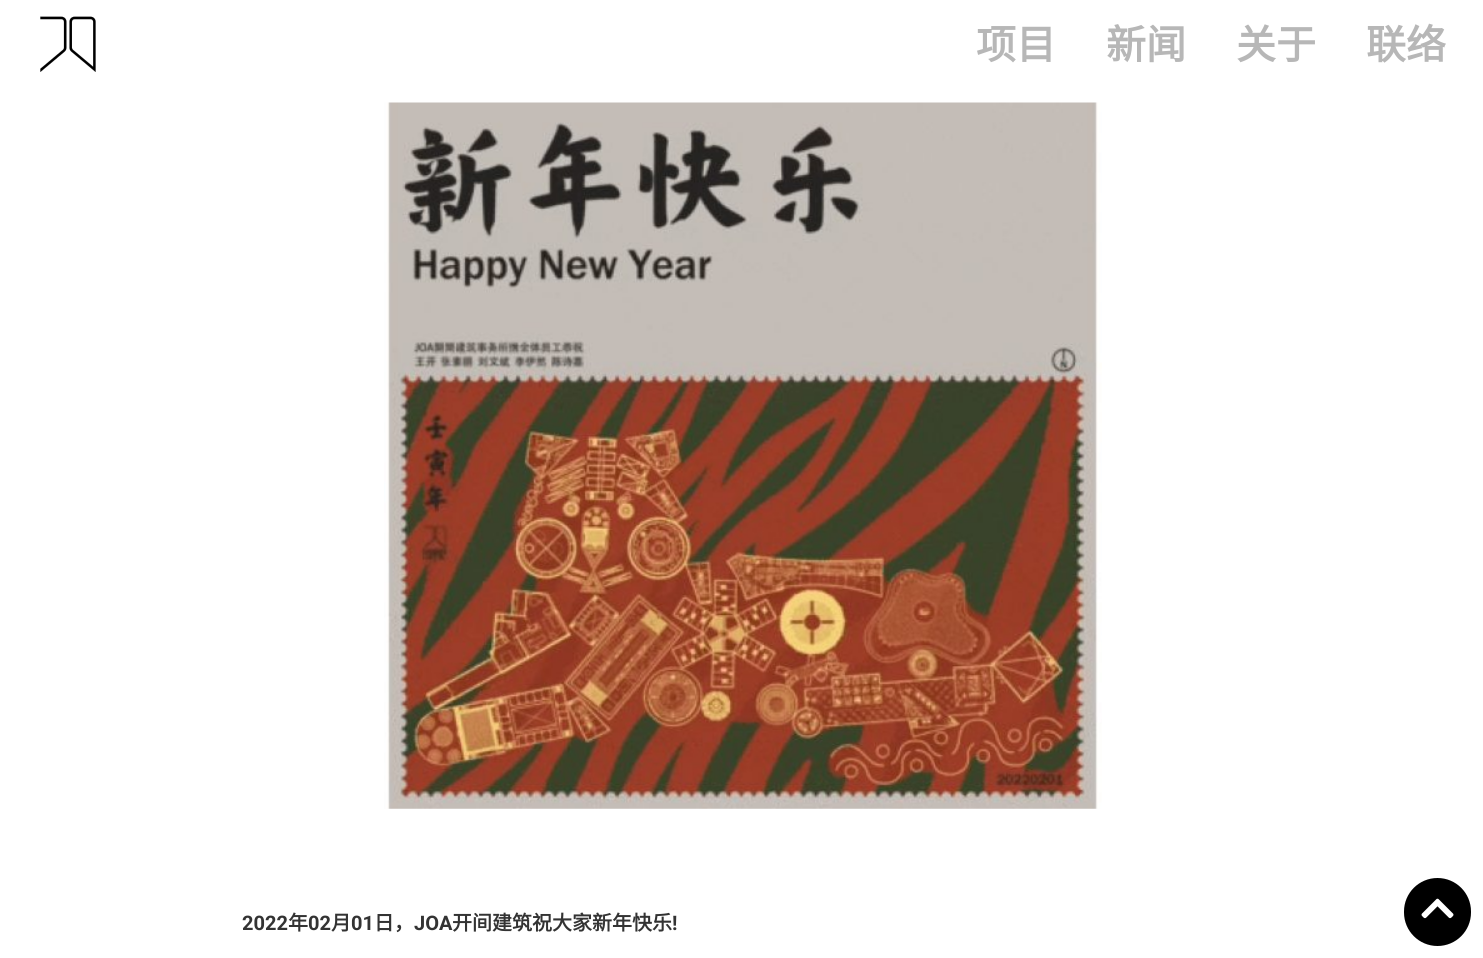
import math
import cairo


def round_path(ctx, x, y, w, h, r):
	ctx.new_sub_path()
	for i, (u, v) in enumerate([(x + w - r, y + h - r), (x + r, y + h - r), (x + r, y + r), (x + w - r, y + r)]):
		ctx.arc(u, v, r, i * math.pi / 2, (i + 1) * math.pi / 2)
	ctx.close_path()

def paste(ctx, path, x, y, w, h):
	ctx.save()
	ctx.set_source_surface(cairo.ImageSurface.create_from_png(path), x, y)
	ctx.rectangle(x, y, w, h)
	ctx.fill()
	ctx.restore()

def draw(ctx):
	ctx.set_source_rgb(1, 1, 1)
	ctx.paint()
	paste(ctx, 'media/1.png', 40, 16, 56, 56)
	ctx.select_font_face('Noto Sans CJK SC', cairo.FONT_SLANT_NORMAL, cairo.FONT_WEIGHT_BOLD)
	ctx.set_font_size(40)
	ctx.set_source_rgb(0.718, 0.718, 0.718)
	for x, y, s in [
		(976, 59, '项目'),
		(1106, 59, '新闻'),
		(1236, 59, '关于'),
		(1366, 59, '联络'),
	]:
		ctx.move_to(x, y)
		ctx.show_text(s)
	paste(ctx, 'media/2.png', 384, 102, 718, 707)
	ctx.select_font_face('Roboto', cairo.FONT_SLANT_NORMAL, cairo.FONT_WEIGHT_BOLD)
	ctx.set_font_size(20)
	ctx.set_source_rgb(0.2, 0.2, 0.2)
	ctx.move_to(242, 930)
	ctx.show_text('2022')
	ctx.select_font_face('Noto Sans CJK SC', cairo.FONT_SLANT_NORMAL, cairo.FONT_WEIGHT_BOLD)
	ctx.move_to(288, 930)
	ctx.show_text('年')
	ctx.select_font_face('Roboto', cairo.FONT_SLANT_NORMAL, cairo.FONT_WEIGHT_BOLD)
	ctx.move_to(308, 930)
	ctx.show_text('02')
	ctx.select_font_face('Noto Sans CJK SC', cairo.FONT_SLANT_NORMAL, cairo.FONT_WEIGHT_BOLD)
	ctx.move_to(331, 930)
	ctx.show_text('月')
	ctx.select_font_face('Roboto', cairo.FONT_SLANT_NORMAL, cairo.FONT_WEIGHT_BOLD)
	ctx.move_to(351, 930)
	ctx.show_text('01')
	ctx.select_font_face('Noto Sans CJK SC', cairo.FONT_SLANT_NORMAL, cairo.FONT_WEIGHT_BOLD)
	ctx.move_to(374, 930)
	ctx.show_text('日，')
	ctx.select_font_face('Roboto', cairo.FONT_SLANT_NORMAL, cairo.FONT_WEIGHT_BOLD)
	ctx.move_to(414, 930)
	ctx.show_text('JOA')
	ctx.select_font_face('Noto Sans CJK SC', cairo.FONT_SLANT_NORMAL, cairo.FONT_WEIGHT_BOLD)
	ctx.move_to(452, 930)
	ctx.show_text('开间建筑祝大家新年快乐')
	ctx.select_font_face('Roboto', cairo.FONT_SLANT_NORMAL, cairo.FONT_WEIGHT_BOLD)
	ctx.move_to(672, 930)
	ctx.show_text('!')
	ctx.set_source_rgb(0, 0, 0)
	round_path(ctx, 1404, 878, 67, 68, 33.5)
	ctx.fill()
	paste(ctx, 'media/3.png', 1421, 898, 33, 21)


surface = cairo.ImageSurface(cairo.FORMAT_RGB24, 1483, 958)
ctx = cairo.Context(surface)
options = cairo.FontOptions()
options.set_hint_metrics(cairo.HINT_METRICS_OFF)
options.set_hint_style(cairo.HINT_STYLE_NONE)
ctx.set_font_options(options)
ctx.set_miter_limit(4)
draw(ctx)
surface.write_to_png('image.png')
